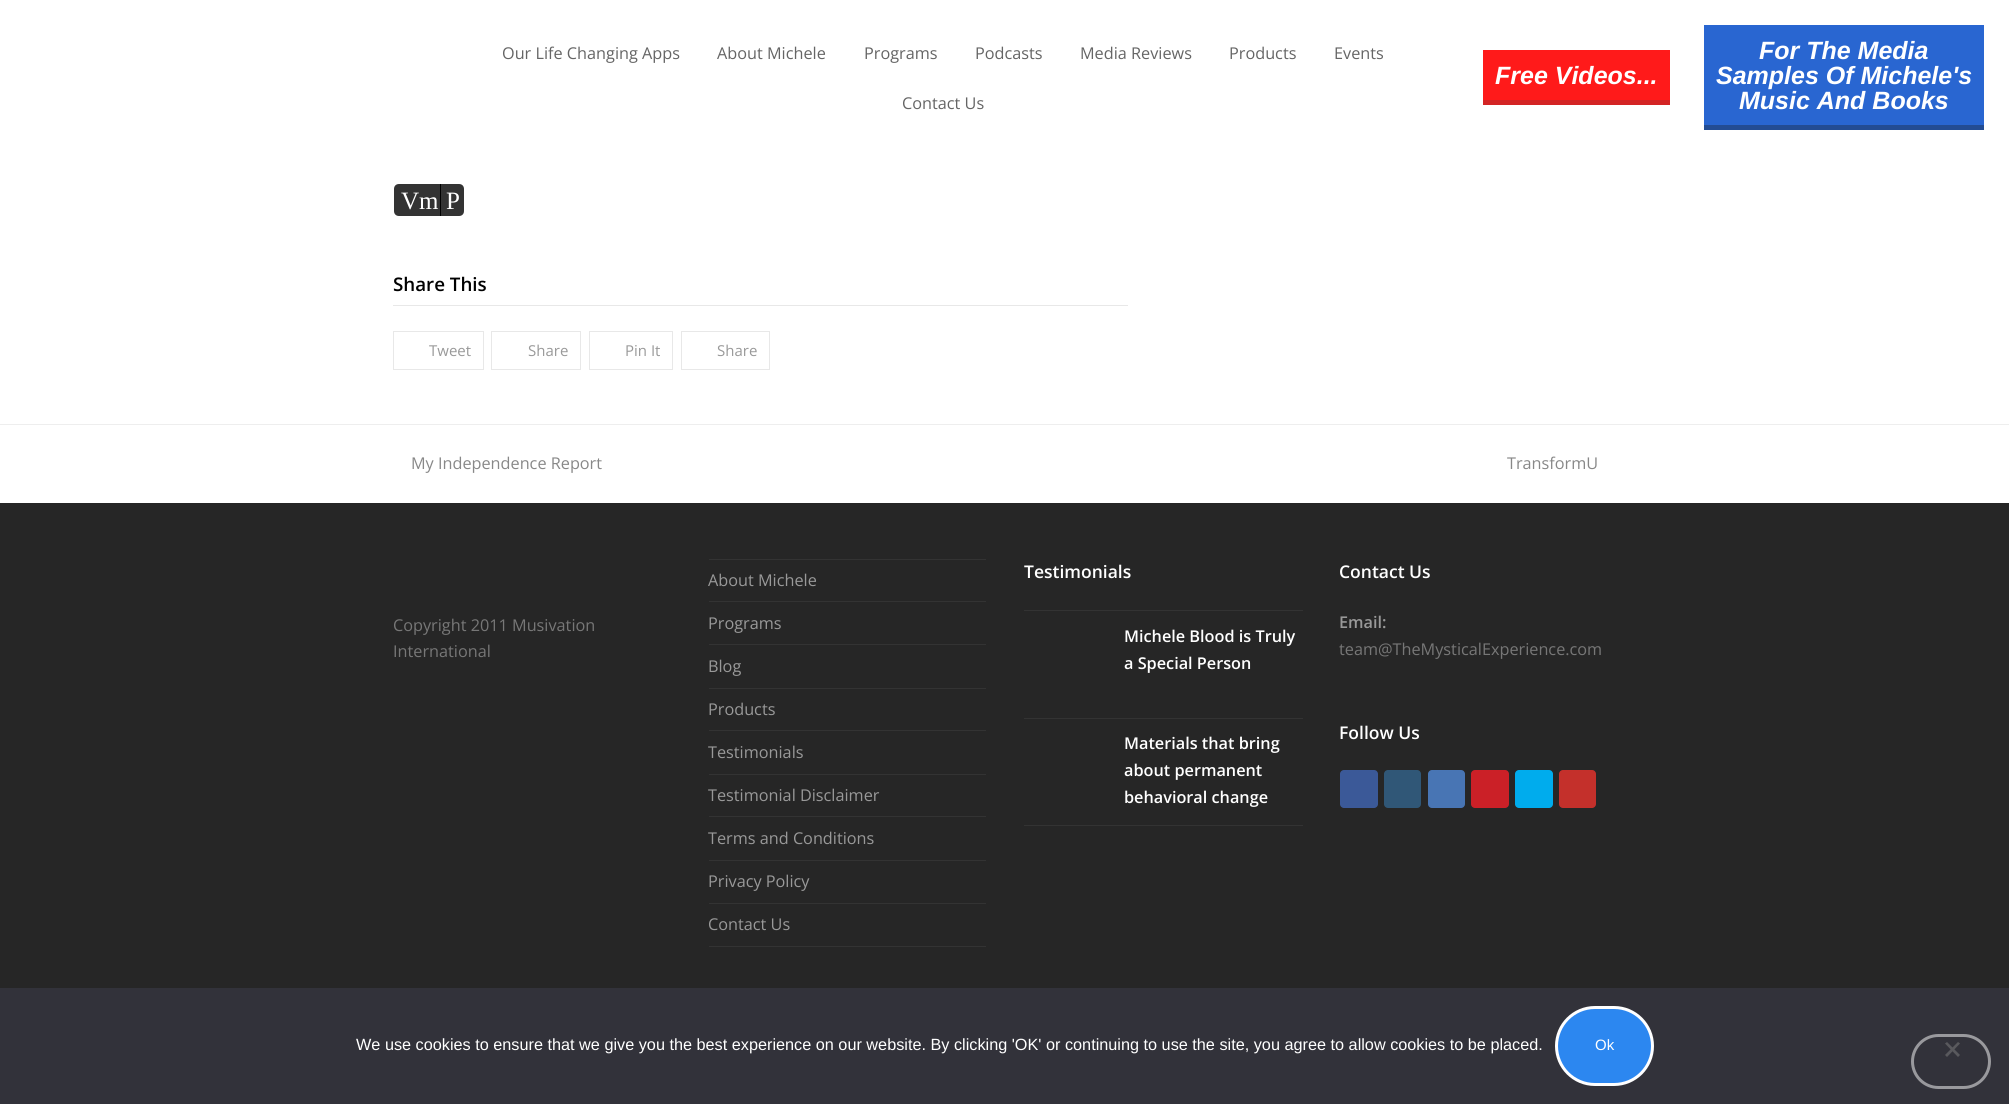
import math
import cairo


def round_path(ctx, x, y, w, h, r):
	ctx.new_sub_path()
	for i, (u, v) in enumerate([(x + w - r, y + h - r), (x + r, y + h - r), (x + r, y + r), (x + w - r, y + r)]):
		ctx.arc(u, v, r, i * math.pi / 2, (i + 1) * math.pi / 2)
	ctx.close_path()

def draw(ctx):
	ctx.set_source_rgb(1, 1, 1)
	ctx.paint()
	ctx.select_font_face('Open Sans')
	ctx.set_font_size(16.25)
	ctx.set_source_rgb(0.396, 0.396, 0.396)
	for x, y, s in [
		(502, 59, 'Our Life Changing Apps'),
		(717, 59, 'About Michele'),
		(864, 59, 'Programs'),
		(975, 59, 'Podcasts'),
		(1080, 59, 'Media Reviews'),
		(1229, 59, 'Products'),
		(1334, 59, 'Events'),
		(902, 109, 'Contact Us'),
	]:
		ctx.move_to(x, y)
		ctx.show_text(s)
	ctx.set_source_rgb(1, 0.102, 0.102)
	ctx.rectangle(1483, 50, 187, 50)
	ctx.fill()
	ctx.set_source_rgb(0.827, 0.141, 0.141)
	ctx.rectangle(1483, 100, 187, 5)
	ctx.fill()
	ctx.select_font_face('Liberation Sans', cairo.FONT_SLANT_ITALIC, cairo.FONT_WEIGHT_BOLD)
	ctx.set_font_size(25)
	ctx.set_source_rgb(1, 1, 1)
	ctx.move_to(1495, 84)
	ctx.show_text('Free Videos...')
	ctx.set_source_rgb(0.161, 0.4, 0.82)
	ctx.rectangle(1704, 25, 280, 100)
	ctx.fill()
	ctx.set_source_rgb(0.137, 0.298, 0.576)
	ctx.rectangle(1704, 125, 280, 5)
	ctx.fill()
	ctx.set_source_rgb(1, 1, 1)
	for x, y, s in [
		(1759, 59, 'For The Media'),
		(1716, 84, 'Samples Of Michele\'s'),
		(1739, 109, 'Music And Books'),
	]:
		ctx.move_to(x, y)
		ctx.show_text(s)
	ctx.set_source_rgb(0.2, 0.2, 0.2)
	ctx.new_path()
	ctx.move_to(399, 184)
	ctx.line_to(440, 184)
	ctx.line_to(440, 216)
	ctx.line_to(399, 216)
	ctx.curve_to(396, 216, 394, 214, 394, 211)
	ctx.line_to(394, 189)
	ctx.curve_to(394, 186, 396, 184, 399, 184)
	ctx.close_path()
	ctx.fill()
	ctx.select_font_face('Liberation Serif')
	ctx.set_source_rgb(1, 1, 1)
	ctx.move_to(401, 209)
	ctx.show_text('Vm')
	ctx.set_source_rgb(0.2, 0.2, 0.2)
	ctx.new_path()
	ctx.move_to(440, 184)
	ctx.line_to(459, 184)
	ctx.curve_to(462, 184, 464, 186, 464, 189)
	ctx.line_to(464, 211)
	ctx.curve_to(464, 214, 462, 216, 459, 216)
	ctx.line_to(440, 216)
	ctx.close_path()
	ctx.fill()
	ctx.set_source_rgb(0, 0, 0)
	ctx.rectangle(440, 184, 1, 32)
	ctx.fill()
	ctx.set_source_rgb(1, 1, 1)
	ctx.move_to(446, 209)
	ctx.show_text('P')
	ctx.set_source_rgb(0.91, 0.91, 0.91)
	ctx.rectangle(393, 305, 735, 1)
	ctx.fill()
	ctx.select_font_face('Open Sans SemiBold')
	ctx.set_font_size(18.75)
	ctx.set_source_rgb(0, 0, 0)
	ctx.move_to(393, 291)
	ctx.show_text('Share This')
	ctx.rectangle(393.5, 331.5, 90, 38)
	ctx.set_source_rgb(0.91, 0.91, 0.91)
	ctx.set_line_width(1)
	ctx.stroke()
	ctx.select_font_face('Open Sans')
	ctx.set_font_size(15)
	ctx.set_source_rgb(0.6, 0.6, 0.6)
	ctx.move_to(429, 356)
	ctx.show_text('Tweet')
	ctx.rectangle(491.5, 331.5, 89, 38)
	ctx.set_source_rgb(0.91, 0.91, 0.91)
	ctx.stroke()
	ctx.set_source_rgb(0.6, 0.6, 0.6)
	ctx.move_to(528, 356)
	ctx.show_text('Share')
	ctx.rectangle(589.5, 331.5, 83, 38)
	ctx.set_source_rgb(0.91, 0.91, 0.91)
	ctx.stroke()
	ctx.set_source_rgb(0.6, 0.6, 0.6)
	ctx.move_to(625, 356)
	ctx.show_text('Pin It')
	ctx.rectangle(681.5, 331.5, 88, 38)
	ctx.set_source_rgb(0.91, 0.91, 0.91)
	ctx.stroke()
	ctx.set_source_rgb(0.6, 0.6, 0.6)
	ctx.move_to(717, 356)
	ctx.show_text('Share')
	ctx.set_source_rgb(0.933, 0.933, 0.933)
	ctx.rectangle(0, 424, 2009, 1)
	ctx.fill()
	ctx.set_font_size(16.25)
	ctx.set_source_rgb(0.533, 0.533, 0.533)
	ctx.move_to(411, 469)
	ctx.show_text('My Independence Report')
	ctx.move_to(1507, 469)
	ctx.show_text('TransformU')
	ctx.set_source_rgb(0.149, 0.149, 0.149)
	ctx.rectangle(0, 503, 2009, 485)
	ctx.fill()
	ctx.set_source_rgb(0.467, 0.467, 0.467)
	ctx.move_to(393, 631)
	ctx.show_text('Copyright 2011 Musivation')
	ctx.move_to(393, 657)
	ctx.show_text('International')
	ctx.set_source_rgb(0.2, 0.2, 0.2)
	ctx.rectangle(709, 559, 277, 1)
	ctx.fill()
	ctx.rectangle(709, 601, 277, 1)
	ctx.fill()
	ctx.set_source_rgb(0.6, 0.6, 0.6)
	ctx.move_to(708, 586)
	ctx.show_text('About Michele')
	ctx.set_source_rgb(0.2, 0.2, 0.2)
	ctx.rectangle(709, 644, 277, 1)
	ctx.fill()
	ctx.set_source_rgb(0.6, 0.6, 0.6)
	ctx.move_to(708, 629)
	ctx.show_text('Programs')
	ctx.set_source_rgb(0.2, 0.2, 0.2)
	ctx.rectangle(709, 688, 277, 1)
	ctx.fill()
	ctx.set_source_rgb(0.6, 0.6, 0.6)
	ctx.move_to(708, 672)
	ctx.show_text('Blog')
	ctx.set_source_rgb(0.2, 0.2, 0.2)
	ctx.rectangle(709, 730, 277, 1)
	ctx.fill()
	ctx.set_source_rgb(0.6, 0.6, 0.6)
	ctx.move_to(708, 715)
	ctx.show_text('Products')
	ctx.set_source_rgb(0.2, 0.2, 0.2)
	ctx.rectangle(709, 774, 277, 1)
	ctx.fill()
	ctx.set_source_rgb(0.6, 0.6, 0.6)
	ctx.move_to(708, 758)
	ctx.show_text('Testimonials')
	ctx.set_source_rgb(0.2, 0.2, 0.2)
	ctx.rectangle(709, 816, 277, 1)
	ctx.fill()
	ctx.set_source_rgb(0.6, 0.6, 0.6)
	ctx.move_to(708, 801)
	ctx.show_text('Testimonial Disclaimer')
	ctx.set_source_rgb(0.2, 0.2, 0.2)
	ctx.rectangle(709, 860, 277, 1)
	ctx.fill()
	ctx.set_source_rgb(0.6, 0.6, 0.6)
	ctx.move_to(708, 844)
	ctx.show_text('Terms and Conditions')
	ctx.set_source_rgb(0.2, 0.2, 0.2)
	ctx.rectangle(709, 903, 277, 1)
	ctx.fill()
	ctx.set_source_rgb(0.6, 0.6, 0.6)
	ctx.move_to(708, 887)
	ctx.show_text('Privacy Policy')
	ctx.set_source_rgb(0.2, 0.2, 0.2)
	ctx.rectangle(709, 946, 277, 1)
	ctx.fill()
	ctx.set_source_rgb(0.6, 0.6, 0.6)
	ctx.move_to(708, 930)
	ctx.show_text('Contact Us')
	ctx.select_font_face('Open Sans SemiBold')
	ctx.set_font_size(17.5)
	ctx.set_source_rgb(1, 1, 1)
	ctx.move_to(1024, 578)
	ctx.show_text('Testimonials')
	ctx.set_source_rgb(0.2, 0.2, 0.2)
	ctx.rectangle(1024, 610, 279, 1)
	ctx.fill()
	ctx.rectangle(1024, 718, 279, 1)
	ctx.fill()
	ctx.set_font_size(16.25)
	ctx.set_source_rgb(1, 1, 1)
	ctx.move_to(1124, 642)
	ctx.show_text('Michele Blood is Truly')
	ctx.move_to(1124, 669)
	ctx.show_text('a Special Person')
	ctx.set_source_rgb(0.2, 0.2, 0.2)
	ctx.rectangle(1024, 825, 279, 1)
	ctx.fill()
	ctx.set_source_rgb(1, 1, 1)
	for x, y, s in [
		(1124, 749, 'Materials that bring'),
		(1124, 776, 'about permanent'),
		(1124, 803, 'behavioral change'),
	]:
		ctx.move_to(x, y)
		ctx.show_text(s)
	ctx.set_font_size(17.5)
	ctx.move_to(1339, 578)
	ctx.show_text('Contact Us')
	ctx.set_font_size(16.25)
	ctx.set_source_rgb(0.6, 0.6, 0.6)
	ctx.move_to(1339, 628)
	ctx.show_text('Email:')
	ctx.select_font_face('Open Sans')
	ctx.set_source_rgb(0.467, 0.467, 0.467)
	ctx.move_to(1339, 655)
	ctx.show_text('team@TheMysticalExperience.com')
	ctx.select_font_face('Open Sans SemiBold')
	ctx.set_font_size(17.5)
	ctx.set_source_rgb(1, 1, 1)
	ctx.move_to(1339, 739)
	ctx.show_text('Follow Us')
	ctx.set_source_rgb(0.231, 0.349, 0.596)
	round_path(ctx, 1340, 770, 38, 38, 4)
	ctx.fill()
	ctx.set_source_rgb(0.188, 0.341, 0.467)
	round_path(ctx, 1384, 770, 37, 38, 4)
	ctx.fill()
	ctx.set_source_rgb(0.282, 0.459, 0.706)
	round_path(ctx, 1428, 770, 37, 38, 4)
	ctx.fill()
	ctx.set_source_rgb(0.796, 0.125, 0.153)
	round_path(ctx, 1471, 770, 38, 38, 4)
	ctx.fill()
	ctx.set_source_rgb(0, 0.675, 0.929)
	round_path(ctx, 1515, 770, 38, 38, 4)
	ctx.fill()
	ctx.set_source_rgb(0.769, 0.188, 0.169)
	round_path(ctx, 1559, 770, 37, 38, 4)
	ctx.fill()
	ctx.set_source_rgb(0.196, 0.196, 0.227)
	ctx.rectangle(0, 988, 2009, 116)
	ctx.fill()
	ctx.select_font_face('Liberation Sans')
	ctx.set_font_size(16.25)
	ctx.set_source_rgb(1, 1, 1)
	ctx.move_to(356, 1050)
	ctx.show_text('We use cookies to ensure that we give you the best experience on our website. By clicking \'OK\' or continuing to use the site, you agree to allow cookies to be placed.')
	ctx.set_source_rgb(0.173, 0.529, 0.941)
	round_path(ctx, 1556.5, 1007.5, 96, 77, 38.5)
	ctx.fill_preserve()
	ctx.set_source_rgb(1, 1, 1)
	ctx.set_line_width(3)
	ctx.stroke()
	ctx.set_font_size(15)
	ctx.move_to(1595, 1050)
	ctx.show_text('Ok')
	round_path(ctx, 1912.5, 1035.5, 77, 52, 26)
	ctx.set_source_rgb(0.6, 0.6, 0.616)
	ctx.stroke()
	ctx.set_source_rgb(0.349, 0.349, 0.365)
	ctx.new_path()
	ctx.move_to(1958, 1042)
	ctx.line_to(1960, 1043.5)
	ctx.line_to(1947, 1057)
	ctx.line_to(1945, 1055)
	ctx.close_path()
	ctx.fill()
	ctx.new_path()
	ctx.move_to(1945, 1043.5)
	ctx.line_to(1947, 1042)
	ctx.line_to(1960, 1055)
	ctx.line_to(1958, 1057)
	ctx.close_path()
	ctx.fill()


surface = cairo.ImageSurface(cairo.FORMAT_RGB24, 2009, 1104)
ctx = cairo.Context(surface)
options = cairo.FontOptions()
options.set_hint_metrics(cairo.HINT_METRICS_OFF)
options.set_hint_style(cairo.HINT_STYLE_NONE)
ctx.set_font_options(options)
ctx.set_miter_limit(4)
draw(ctx)
surface.write_to_png('image.png')
